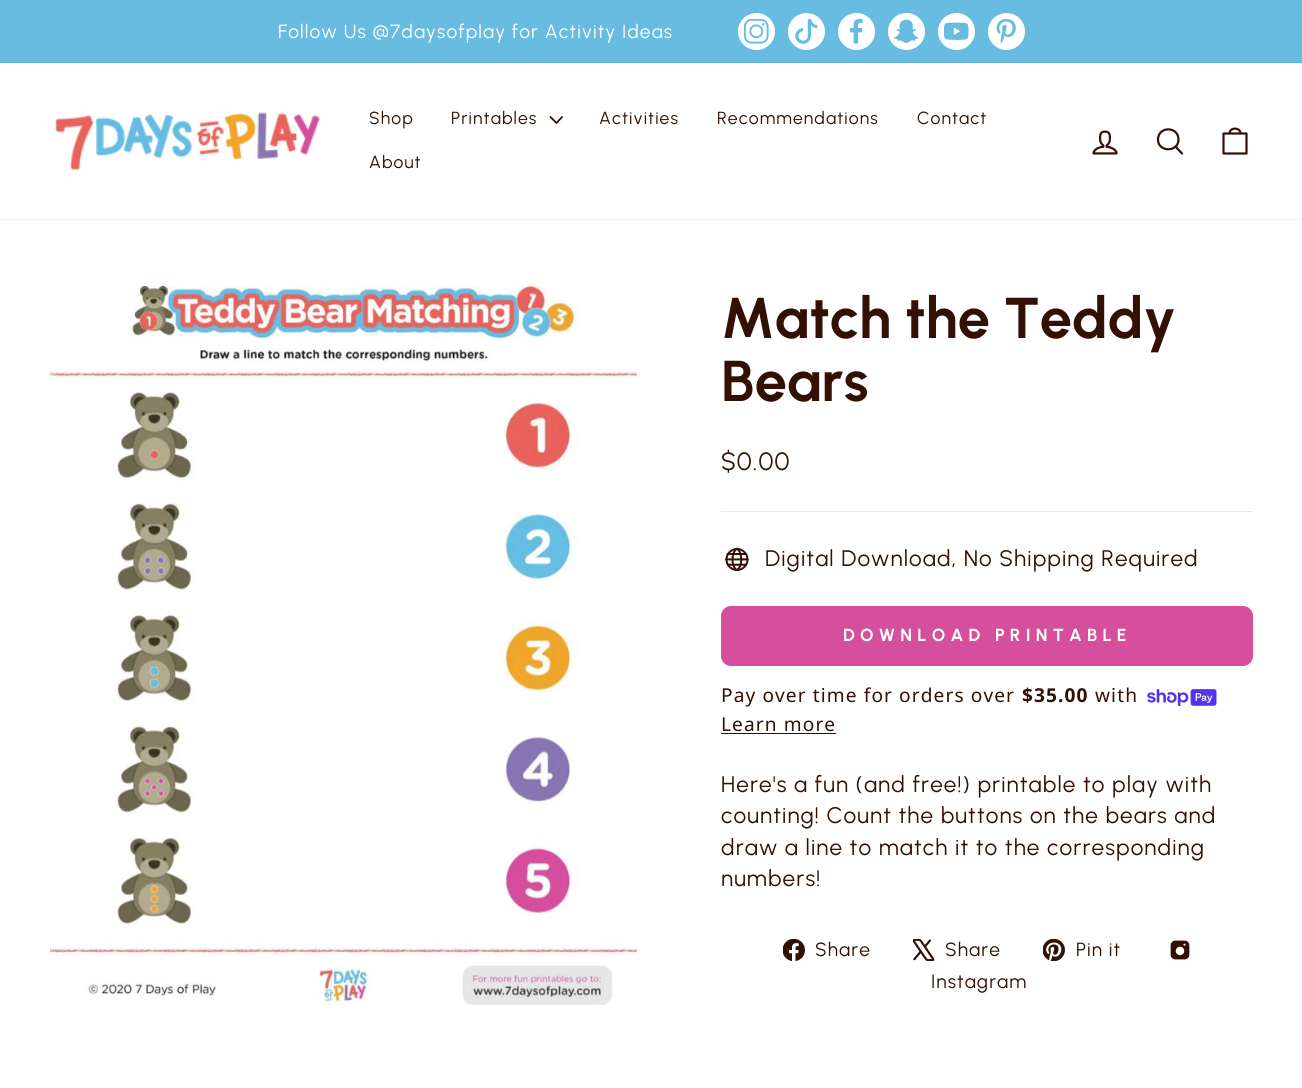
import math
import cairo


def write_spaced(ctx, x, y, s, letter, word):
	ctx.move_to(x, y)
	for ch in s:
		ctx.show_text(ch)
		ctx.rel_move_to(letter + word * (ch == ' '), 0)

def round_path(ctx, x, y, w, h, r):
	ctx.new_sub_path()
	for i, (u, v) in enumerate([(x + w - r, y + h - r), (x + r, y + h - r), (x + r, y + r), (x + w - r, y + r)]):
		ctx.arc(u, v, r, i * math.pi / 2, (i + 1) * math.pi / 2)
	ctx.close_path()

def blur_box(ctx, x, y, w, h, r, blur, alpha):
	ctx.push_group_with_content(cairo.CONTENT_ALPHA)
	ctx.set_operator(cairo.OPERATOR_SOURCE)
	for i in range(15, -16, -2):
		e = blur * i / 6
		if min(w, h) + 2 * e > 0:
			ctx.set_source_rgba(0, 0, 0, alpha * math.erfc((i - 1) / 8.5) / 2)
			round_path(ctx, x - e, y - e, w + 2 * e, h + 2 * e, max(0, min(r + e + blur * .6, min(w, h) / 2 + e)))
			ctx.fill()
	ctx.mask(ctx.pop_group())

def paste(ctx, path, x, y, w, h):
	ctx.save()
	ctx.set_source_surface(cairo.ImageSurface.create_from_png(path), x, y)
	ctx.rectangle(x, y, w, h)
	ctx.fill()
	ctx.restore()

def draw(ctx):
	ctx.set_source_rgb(1, 1, 1)
	ctx.paint()
	ctx.set_source_rgb(0.408, 0.733, 0.882)
	ctx.rectangle(0, 0, 1302, 63)
	ctx.fill()
	ctx.select_font_face('Urbanist')
	ctx.set_font_size(19.1)
	ctx.set_source_rgb(1, 1, 1)
	write_spaced(ctx, 278, 38, 'Follow Us @7daysofplay for Activity Ideas', 1.1, 0)
	ctx.new_path()
	ctx.arc(756.5, 31.5, 18.5, 0, 2 * math.pi)
	ctx.fill()
	paste(ctx, 'media/1.png', 744, 19, 25, 25)
	ctx.arc(806.5, 31.5, 18.5, 0, 2 * math.pi)
	ctx.fill()
	paste(ctx, 'media/2.png', 795, 19, 23, 25)
	ctx.arc(856.5, 31.5, 18.5, 0, 2 * math.pi)
	ctx.fill()
	paste(ctx, 'media/3.png', 849, 19, 14, 25)
	ctx.arc(906.5, 31.5, 18.5, 0, 2 * math.pi)
	ctx.fill()
	paste(ctx, 'media/4.png', 894, 19, 25, 24)
	ctx.arc(956.5, 31.5, 18.5, 0, 2 * math.pi)
	ctx.fill()
	paste(ctx, 'media/5.png', 944, 22, 25, 18)
	ctx.arc(1006.5, 31.5, 18.5, 0, 2 * math.pi)
	ctx.fill()
	paste(ctx, 'media/6.png', 996, 19, 20, 25)
	ctx.set_source_rgb(0, 0, 0)
	blur_box(ctx, 0, 63, 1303, 156, 0, 0.5, 0.2)
	ctx.set_source_rgb(1, 1, 1)
	ctx.rectangle(0, 63, 1302, 156)
	ctx.fill()
	paste(ctx, 'media/7.png', 55, 112, 266, 59)
	ctx.set_font_size(17.5)
	ctx.set_source_rgb(0.196, 0.063, 0.016)
	write_spaced(ctx, 369, 124, 'Shop', 1.1, 0)
	write_spaced(ctx, 451, 124, 'Printables', 1.1, 0)
	ctx.new_path()
	ctx.move_to(550.5, 117)
	ctx.line_to(556.5, 123)
	ctx.line_to(562, 117)
	ctx.set_line_width(1.8)
	ctx.set_line_cap(cairo.LINE_CAP_ROUND)
	ctx.set_line_join(cairo.LINE_JOIN_ROUND)
	ctx.stroke()
	for x, y, s in [
		(599, 124, 'Activities'),
		(717, 124, 'Recommendations'),
		(917, 124, 'Contact'),
		(369, 168, 'About'),
	]:
		write_spaced(ctx, x, y, s, 1.1, 0)
	paste(ctx, 'media/8.png', 1092, 130, 26, 25)
	ctx.new_path()
	ctx.move_to(1178.5, 139.5)
	ctx.curve_to(1178.5, 152.5, 1158, 152.5, 1158, 139.5)
	ctx.curve_to(1158, 126, 1178.5, 126, 1178.5, 139.5)
	ctx.close_path()
	ctx.move_to(1182, 153.5)
	ctx.line_to(1175.5, 146.5)
	ctx.set_line_width(2.2)
	ctx.stroke()
	ctx.new_path()
	ctx.move_to(1223.5, 133.5)
	ctx.line_to(1246.5, 133.5)
	ctx.line_to(1246.5, 153.5)
	ctx.line_to(1223.5, 153.5)
	ctx.close_path()
	ctx.move_to(1229.5, 133.5)
	ctx.curve_to(1229.5, 127, 1240.5, 127, 1240.5, 133.5)
	ctx.stroke()
	paste(ctx, 'media/9.png', 50, 286, 587, 719)
	ctx.select_font_face('Urbanist', cairo.FONT_SLANT_NORMAL, cairo.FONT_WEIGHT_BOLD)
	ctx.set_font_size(57.5)
	ctx.move_to(721, 338)
	ctx.show_text('Match the Teddy')
	ctx.move_to(721, 401)
	ctx.show_text('Bears')
	ctx.select_font_face('Urbanist')
	ctx.set_font_size(25)
	write_spaced(ctx, 721, 470, '$0.00', 1.1, 0)
	ctx.set_source_rgb(0.91, 0.91, 0.882)
	ctx.rectangle(721, 511, 532, 1)
	ctx.fill()
	paste(ctx, 'media/10.png', 725, 547, 24, 25)
	ctx.set_font_size(22.5)
	ctx.set_source_rgb(0.196, 0.063, 0.016)
	write_spaced(ctx, 765, 566, 'Digital Download, No Shipping Required', 1.1, 0)
	ctx.set_source_rgb(0.835, 0.31, 0.612)
	round_path(ctx, 721, 606, 532, 60, 10)
	ctx.fill()
	ctx.select_font_face('Urbanist', cairo.FONT_SLANT_NORMAL, cairo.FONT_WEIGHT_BOLD)
	ctx.set_font_size(17.5)
	ctx.set_source_rgb(1, 1, 1)
	write_spaced(ctx, 843, 641, 'DOWNLOAD PRINTABLE', 5.25, 0)
	ctx.select_font_face('Noto Sans')
	ctx.set_font_size(19.1)
	ctx.set_source_rgb(0.196, 0.063, 0.016)
	write_spaced(ctx, 721, 702, 'Pay over time for orders over', 1.1, 0)
	ctx.select_font_face('Noto Sans', cairo.FONT_SLANT_NORMAL, cairo.FONT_WEIGHT_BOLD)
	write_spaced(ctx, 1022, 702, '$35.00', 1.1, 0)
	ctx.select_font_face('Noto Sans')
	write_spaced(ctx, 1095, 702, 'with', 1.1, 0)
	paste(ctx, 'media/11.png', 1147, 689, 70, 17)
	write_spaced(ctx, 721, 731, 'Learn more', 1.1, 0)
	ctx.rectangle(721, 733, 115, 1)
	ctx.fill()
	ctx.select_font_face('Urbanist')
	ctx.set_font_size(22.5)
	for x, y, s in [
		(721, 792, 'Here\'s a fun (and free!) printable to play with'),
		(721, 823, 'counting! Count the buttons on the bears and'),
		(721, 855, 'draw a line to match it to the corresponding'),
		(721, 886, 'numbers!'),
	]:
		write_spaced(ctx, x, y, s, 1.1, 0)
	paste(ctx, 'media/12.png', 783, 939, 22, 22)
	ctx.set_font_size(19.1)
	write_spaced(ctx, 815, 956, 'Share', 1.1, 0)
	paste(ctx, 'media/13.png', 913, 939, 22, 22)
	write_spaced(ctx, 945, 956, 'Share', 1.1, 0)
	paste(ctx, 'media/14.png', 1043, 939, 22, 22)
	write_spaced(ctx, 1076, 956, 'Pin it', 1.1, 0)
	paste(ctx, 'media/15.png', 1170, 940, 20, 20)
	write_spaced(ctx, 931, 988, 'Instagram', 1.1, 0)


surface = cairo.ImageSurface(cairo.FORMAT_RGB24, 1302, 1088)
ctx = cairo.Context(surface)
options = cairo.FontOptions()
options.set_hint_metrics(cairo.HINT_METRICS_OFF)
options.set_hint_style(cairo.HINT_STYLE_NONE)
ctx.set_font_options(options)
ctx.set_miter_limit(4)
draw(ctx)
surface.write_to_png('image.png')
